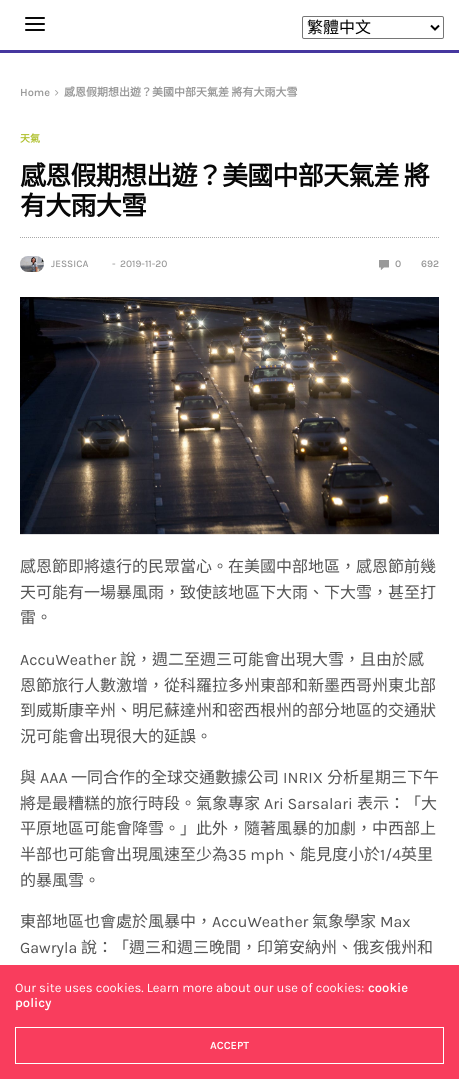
import math
import cairo


def write_spaced(ctx, x, y, s, letter, word):
	ctx.move_to(x, y)
	for ch in s:
		ctx.show_text(ch)
		ctx.rel_move_to(letter + word * (ch == ' '), 0)

def round_path(ctx, x, y, w, h, r):
	ctx.new_sub_path()
	for i, (u, v) in enumerate([(x + w - r, y + h - r), (x + r, y + h - r), (x + r, y + r), (x + w - r, y + r)]):
		ctx.arc(u, v, r, i * math.pi / 2, (i + 1) * math.pi / 2)
	ctx.close_path()

def paste(ctx, path, x, y, w, h):
	ctx.save()
	ctx.set_source_surface(cairo.ImageSurface.create_from_png(path), x, y)
	ctx.rectangle(x, y, w, h)
	ctx.fill()
	ctx.restore()

def draw(ctx):
	ctx.set_source_rgb(1, 1, 1)
	ctx.paint()
	round_path(ctx, 302.5, 16.5, 141, 22, 1.5)
	ctx.set_source_rgb(0.463, 0.463, 0.463)
	ctx.set_line_width(1)
	ctx.stroke()
	ctx.new_path()
	ctx.move_to(431, 25.5)
	ctx.line_to(435, 29.5)
	ctx.line_to(439, 25.5)
	ctx.set_source_rgb(0, 0, 0)
	ctx.set_line_width(2)
	ctx.stroke()
	ctx.select_font_face('Noto Sans CJK TC')
	ctx.set_font_size(16)
	ctx.move_to(307, 33)
	ctx.show_text('繁體中文')
	ctx.set_source_rgb(0.275, 0.216, 0.624)
	ctx.rectangle(0, 50, 459, 3)
	ctx.fill()
	ctx.set_source_rgb(0.039, 0.039, 0.039)
	round_path(ctx, 25, 17, 20, 2, 1)
	ctx.fill()
	round_path(ctx, 25, 23, 20, 2, 1)
	ctx.fill()
	round_path(ctx, 25, 29, 20, 2, 1)
	ctx.fill()
	ctx.select_font_face('Karla SemiBold')
	ctx.set_font_size(11)
	ctx.set_source_rgb(0.596, 0.596, 0.596)
	ctx.move_to(20, 96)
	ctx.show_text('Home')
	paste(ctx, 'media/1.png', 55, 90, 4, 6)
	ctx.select_font_face('Noto Sans CJK TC', cairo.FONT_SLANT_NORMAL, cairo.FONT_WEIGHT_BOLD)
	ctx.move_to(64, 96)
	ctx.show_text('感恩假期想出遊？美國中部天氣差 將有大雨大雪')
	ctx.set_font_size(10)
	ctx.set_source_rgb(0.682, 0.749, 0.169)
	ctx.move_to(20, 142)
	ctx.show_text('天氣')
	ctx.new_path()
	ctx.move_to(20, 237.5)
	ctx.line_to(439, 237.5)
	ctx.set_source_rgb(0.659, 0.659, 0.659)
	ctx.set_line_width(1)
	ctx.set_dash([1, 1])
	ctx.stroke()
	ctx.set_font_size(26)
	ctx.set_source_rgb(0.031, 0.031, 0.031)
	write_spaced(ctx, 20, 185, '感恩假期想出遊？美國中部天氣差 將', -0.75, 0)
	write_spaced(ctx, 20, 215, '有大雨大雪', -0.75, 0)
	paste(ctx, 'media/2.png', 20, 256, 24, 16)
	ctx.select_font_face('Karla Medium')
	ctx.set_font_size(10)
	ctx.set_source_rgb(0.596, 0.596, 0.596)
	for x, y, s in [
		(51, 267, 'JESSICA'),
		(112, 267, '-'),
		(120, 267, '2019-11-20'),
	]:
		ctx.move_to(x, y)
		ctx.show_text(s)
	paste(ctx, 'media/3.png', 379, 260, 10, 10)
	ctx.select_font_face('Karla SemiBold')
	ctx.move_to(395, 267)
	ctx.show_text('0')
	ctx.move_to(421, 267)
	ctx.show_text('692')
	paste(ctx, 'media/4.png', 20, 297, 419, 238)
	ctx.select_font_face('Noto Sans CJK TC')
	ctx.set_font_size(16)
	ctx.set_source_rgb(0.322, 0.322, 0.322)
	for x, y, s in [
		(20, 572, '感恩節即將遠行的民眾當心。在美國中部地區，感恩節前幾'),
		(20, 598, '天可能有一場暴風雨，致使該地區下大雨、下大雪，甚至打'),
		(20, 623, '雷。'),
	]:
		ctx.move_to(x, y)
		ctx.show_text(s)
	ctx.select_font_face('Karla')
	ctx.move_to(20, 665)
	ctx.show_text('AccuWeather')
	ctx.select_font_face('Noto Sans CJK TC')
	for x, y, s in [
		(120, 665, '說，週二至週三可能會出現大雪，且由於感'),
		(20, 691, '恩節旅行人數激增，從科羅拉多州東部和新墨西哥州東北部'),
		(20, 716, '到威斯康辛州、明尼蘇達州和密西根州的部分地區的交通狀'),
		(20, 742, '況可能會出現很大的延誤。'),
		(20, 783, '與'),
	]:
		ctx.move_to(x, y)
		ctx.show_text(s)
	ctx.select_font_face('Karla')
	ctx.move_to(40, 783)
	ctx.show_text('AAA')
	ctx.select_font_face('Noto Sans CJK TC')
	ctx.move_to(71, 783)
	ctx.show_text('一同合作的全球交通數據公司')
	ctx.select_font_face('Karla')
	ctx.move_to(283, 783)
	ctx.show_text('INRIX')
	ctx.select_font_face('Noto Sans CJK TC')
	ctx.move_to(327, 783)
	ctx.show_text('分析星期三下午')
	ctx.move_to(20, 809)
	ctx.show_text('將是最糟糕的旅行時段。氣象專家')
	ctx.select_font_face('Karla')
	ctx.move_to(264, 809)
	ctx.show_text('Ari Sarsalari')
	ctx.select_font_face('Noto Sans CJK TC')
	for x, y, s in [
		(357, 809, '表示：「大'),
		(20, 834, '平原地區可能會降雪。」此外，隨著風暴的加劇，中西部上'),
		(20, 860, '半部也可能會出現風速至少為'),
	]:
		ctx.move_to(x, y)
		ctx.show_text(s)
	ctx.select_font_face('Karla')
	ctx.move_to(228, 860)
	ctx.show_text('35 mph')
	ctx.select_font_face('Noto Sans CJK TC')
	ctx.move_to(284, 860)
	ctx.show_text('、能見度小於')
	ctx.select_font_face('Karla')
	ctx.move_to(380, 860)
	ctx.show_text('1/4')
	ctx.select_font_face('Noto Sans CJK TC')
	for x, y, s in [
		(401, 860, '英里'),
		(20, 886, '的暴風雪。'),
		(20, 927, '東部地區也會處於風暴中，'),
	]:
		ctx.move_to(x, y)
		ctx.show_text(s)
	ctx.select_font_face('Karla')
	ctx.move_to(212, 927)
	ctx.show_text('AccuWeather')
	ctx.select_font_face('Noto Sans CJK TC')
	ctx.move_to(312, 927)
	ctx.show_text('氣象學家')
	ctx.select_font_face('Karla')
	ctx.move_to(380, 927)
	ctx.show_text('Max')
	ctx.move_to(20, 953)
	ctx.show_text('Gawryla')
	ctx.select_font_face('Noto Sans CJK TC')
	ctx.move_to(81, 953)
	ctx.show_text('說：「週三和週三晚間，印第安納州、俄亥俄州和')
	ctx.set_source_rgb(0.976, 0.239, 0.365)
	ctx.rectangle(0, 965, 459, 114)
	ctx.fill()
	ctx.select_font_face('Karla')
	ctx.set_font_size(13)
	ctx.set_source_rgb(1, 1, 1)
	ctx.move_to(15, 992)
	ctx.show_text('Our site uses cookies. Learn more about our use of cookies:')
	ctx.select_font_face('Karla SemiBold')
	ctx.move_to(368, 992)
	ctx.show_text('cookie')
	ctx.move_to(15, 1007)
	ctx.show_text('policy')
	ctx.rectangle(15.5, 1027.5, 428, 36)
	ctx.set_dash([])
	ctx.stroke()
	ctx.set_font_size(11)
	ctx.move_to(210, 1049)
	ctx.show_text('ACCEPT')


surface = cairo.ImageSurface(cairo.FORMAT_RGB24, 459, 1079)
ctx = cairo.Context(surface)
options = cairo.FontOptions()
options.set_hint_metrics(cairo.HINT_METRICS_OFF)
options.set_hint_style(cairo.HINT_STYLE_NONE)
ctx.set_font_options(options)
ctx.set_miter_limit(4)
draw(ctx)
surface.write_to_png('image.png')
